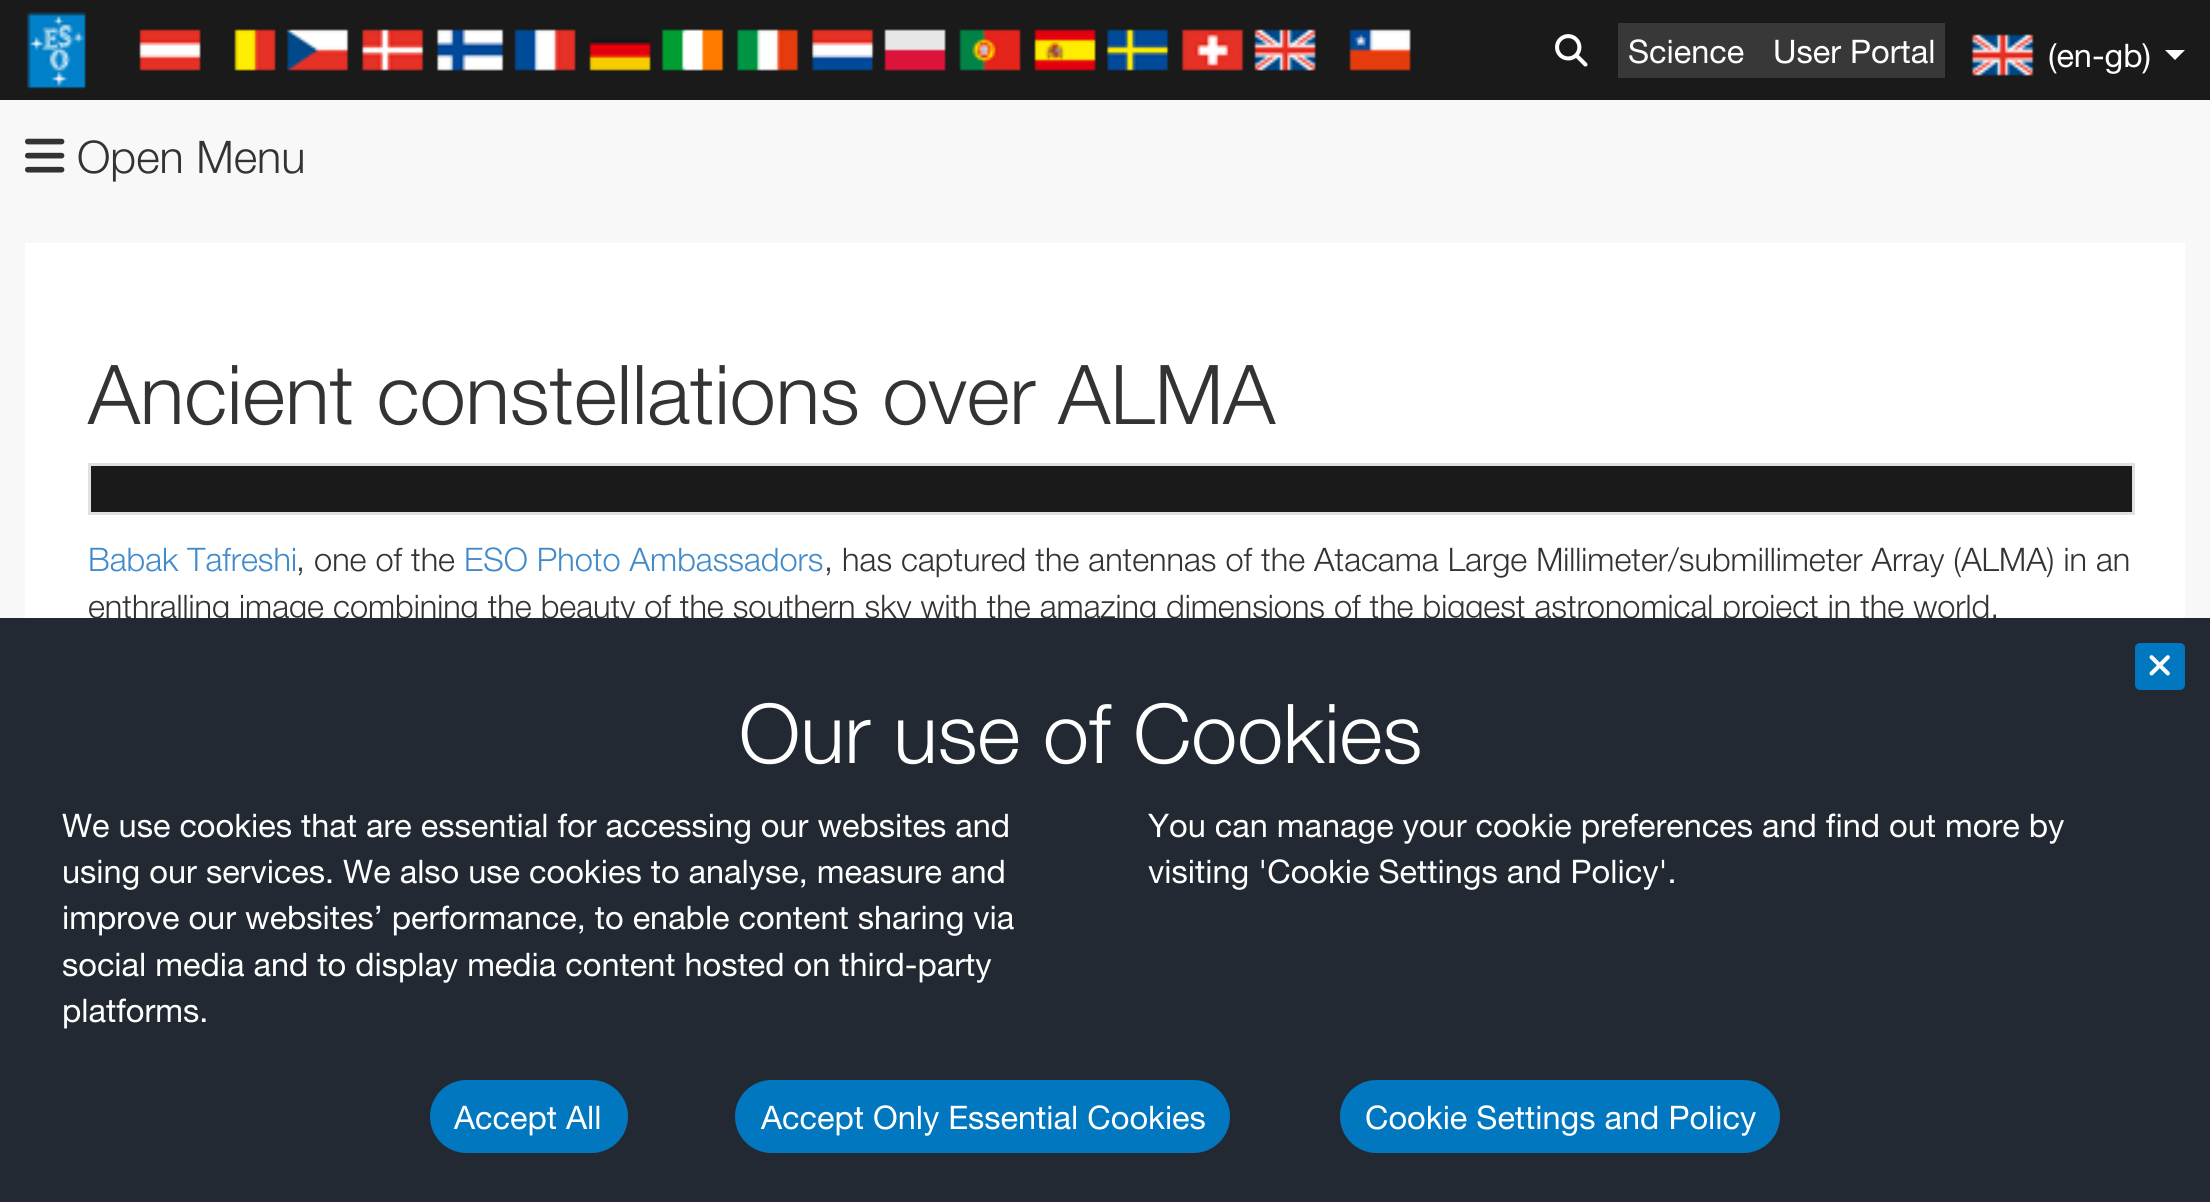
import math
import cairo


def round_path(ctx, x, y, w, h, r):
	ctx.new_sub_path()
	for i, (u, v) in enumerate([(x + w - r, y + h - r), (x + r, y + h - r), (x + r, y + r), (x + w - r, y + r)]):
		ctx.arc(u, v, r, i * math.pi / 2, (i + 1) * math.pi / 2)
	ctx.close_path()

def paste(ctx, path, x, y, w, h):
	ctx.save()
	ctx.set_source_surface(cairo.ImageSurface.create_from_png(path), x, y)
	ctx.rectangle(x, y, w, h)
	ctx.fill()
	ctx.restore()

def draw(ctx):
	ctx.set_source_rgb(0.969, 0.969, 0.969)
	ctx.paint()
	ctx.set_source_rgb(0.102, 0.102, 0.102)
	ctx.rectangle(0, 0, 2210, 100)
	ctx.fill()
	paste(ctx, 'media/1.png', 26, 12, 60, 77)
	paste(ctx, 'media/2.png', 1555, 34, 33, 33)
	ctx.set_source_rgb(0.22, 0.22, 0.22)
	ctx.rectangle(1618, 23, 327, 55)
	ctx.fill()
	ctx.select_font_face('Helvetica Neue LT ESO')
	ctx.set_font_size(32.5)
	ctx.set_source_rgb(1, 1, 1)
	ctx.move_to(1628, 63)
	ctx.show_text('Science')
	ctx.move_to(1773, 63)
	ctx.show_text('User Portal')
	paste(ctx, 'media/3.png', 139, 29, 62, 42)
	paste(ctx, 'media/4.png', 234, 29, 42, 42)
	paste(ctx, 'media/5.png', 286, 29, 63, 42)
	paste(ctx, 'media/6.png', 361, 29, 63, 42)
	paste(ctx, 'media/7.png', 436, 29, 68, 42)
	paste(ctx, 'media/8.png', 514, 29, 62, 42)
	paste(ctx, 'media/9.png', 589, 39, 62, 32)
	paste(ctx, 'media/10.png', 661, 29, 63, 42)
	paste(ctx, 'media/11.png', 736, 29, 63, 42)
	paste(ctx, 'media/12.png', 811, 29, 63, 42)
	paste(ctx, 'media/13.png', 884, 29, 62, 42)
	paste(ctx, 'media/14.png', 959, 29, 62, 42)
	paste(ctx, 'media/15.png', 1034, 29, 62, 42)
	paste(ctx, 'media/16.png', 1106, 29, 63, 42)
	paste(ctx, 'media/17.png', 1181, 29, 63, 42)
	paste(ctx, 'media/18.png', 1254, 29, 62, 42)
	paste(ctx, 'media/19.png', 1349, 29, 62, 42)
	paste(ctx, 'media/20.png', 1971, 34, 63, 42)
	ctx.move_to(2048, 67)
	ctx.show_text('(en-gb)')
	ctx.new_path()
	ctx.move_to(2165, 50)
	ctx.line_to(2185, 50)
	ctx.line_to(2175, 60)
	ctx.close_path()
	ctx.fill()
	paste(ctx, 'media/21.png', 25, 138, 40, 35)
	ctx.select_font_face('Helvetica Neue LT ESO Light')
	ctx.set_font_size(45)
	ctx.set_source_rgb(0.2, 0.2, 0.2)
	ctx.move_to(77, 173)
	ctx.show_text('Open Menu')
	ctx.set_source_rgb(1, 1, 1)
	ctx.rectangle(25, 243, 2160, 375)
	ctx.fill()
	ctx.set_font_size(82.5)
	ctx.set_source_rgb(0.2, 0.2, 0.2)
	ctx.move_to(88, 424)
	ctx.show_text('Ancient constellations over ALMA')
	ctx.set_source_rgb(0.102, 0.102, 0.102)
	ctx.rectangle(89.5, 464.5, 2044, 49)
	ctx.fill_preserve()
	ctx.set_source_rgb(0.878, 0.878, 0.878)
	ctx.set_line_width(3)
	ctx.stroke()
	ctx.set_font_size(32.5)
	ctx.set_source_rgb(0.259, 0.545, 0.792)
	ctx.move_to(88, 571)
	ctx.show_text('Babak Tafreshi')
	ctx.set_source_rgb(0.2, 0.2, 0.2)
	ctx.move_to(296, 571)
	ctx.show_text(', one of the')
	ctx.set_source_rgb(0.259, 0.545, 0.792)
	ctx.move_to(464, 571)
	ctx.show_text('ESO Photo Ambassadors')
	ctx.set_source_rgb(0.2, 0.2, 0.2)
	ctx.move_to(824, 571)
	ctx.show_text(', has captured the antennas of the Atacama Large Millimeter/submillimeter Array (ALMA) in an')
	ctx.move_to(88, 618)
	ctx.show_text('enthralling image combining the beauty of the southern sky with the amazing dimensions of the biggest astronomical project in the world.')
	ctx.set_source_rgb(0.137, 0.161, 0.196)
	ctx.rectangle(0, 618, 2210, 584)
	ctx.fill()
	ctx.set_source_rgb(0, 0.467, 0.745)
	round_path(ctx, 2135, 643, 50, 47, 5)
	ctx.fill()
	paste(ctx, 'media/22.png', 2149, 655, 21, 21)
	ctx.set_font_size(82.5)
	ctx.set_source_rgb(1, 1, 1)
	ctx.move_to(739, 763)
	ctx.show_text('Our use of Cookies')
	ctx.select_font_face('Helvetica Neue LT ESO')
	ctx.set_font_size(32.5)
	for x, y, s in [
		(62, 837, 'We use cookies that are essential for accessing our websites and'),
		(62, 883, 'using our services. We also use cookies to analyse, measure and'),
		(62, 929, 'improve our websites’ performance, to enable content sharing via'),
		(62, 976, 'social media and to display media content hosted on third-party'),
		(62, 1022, 'platforms.'),
		(1148, 837, 'You can manage your cookie preferences and find out more by'),
		(1148, 883, 'visiting \'Cookie Settings and Policy\'.'),
	]:
		ctx.move_to(x, y)
		ctx.show_text(s)
	ctx.set_source_rgb(0, 0.467, 0.745)
	round_path(ctx, 430, 1080, 198, 73, 36.5)
	ctx.fill()
	ctx.set_source_rgb(1, 1, 1)
	ctx.move_to(454, 1129)
	ctx.show_text('Accept All')
	ctx.set_source_rgb(0, 0.467, 0.745)
	round_path(ctx, 735, 1080, 495, 73, 36.5)
	ctx.fill()
	ctx.set_source_rgb(1, 1, 1)
	ctx.move_to(761, 1129)
	ctx.show_text('Accept Only Essential Cookies')
	ctx.set_source_rgb(0, 0.467, 0.745)
	round_path(ctx, 1340, 1080, 440, 73, 36.5)
	ctx.fill()
	ctx.set_source_rgb(1, 1, 1)
	ctx.move_to(1365, 1129)
	ctx.show_text('Cookie Settings and Policy')


surface = cairo.ImageSurface(cairo.FORMAT_RGB24, 2210, 1202)
ctx = cairo.Context(surface)
options = cairo.FontOptions()
options.set_hint_metrics(cairo.HINT_METRICS_OFF)
options.set_hint_style(cairo.HINT_STYLE_NONE)
ctx.set_font_options(options)
ctx.set_miter_limit(4)
draw(ctx)
surface.write_to_png('image.png')
